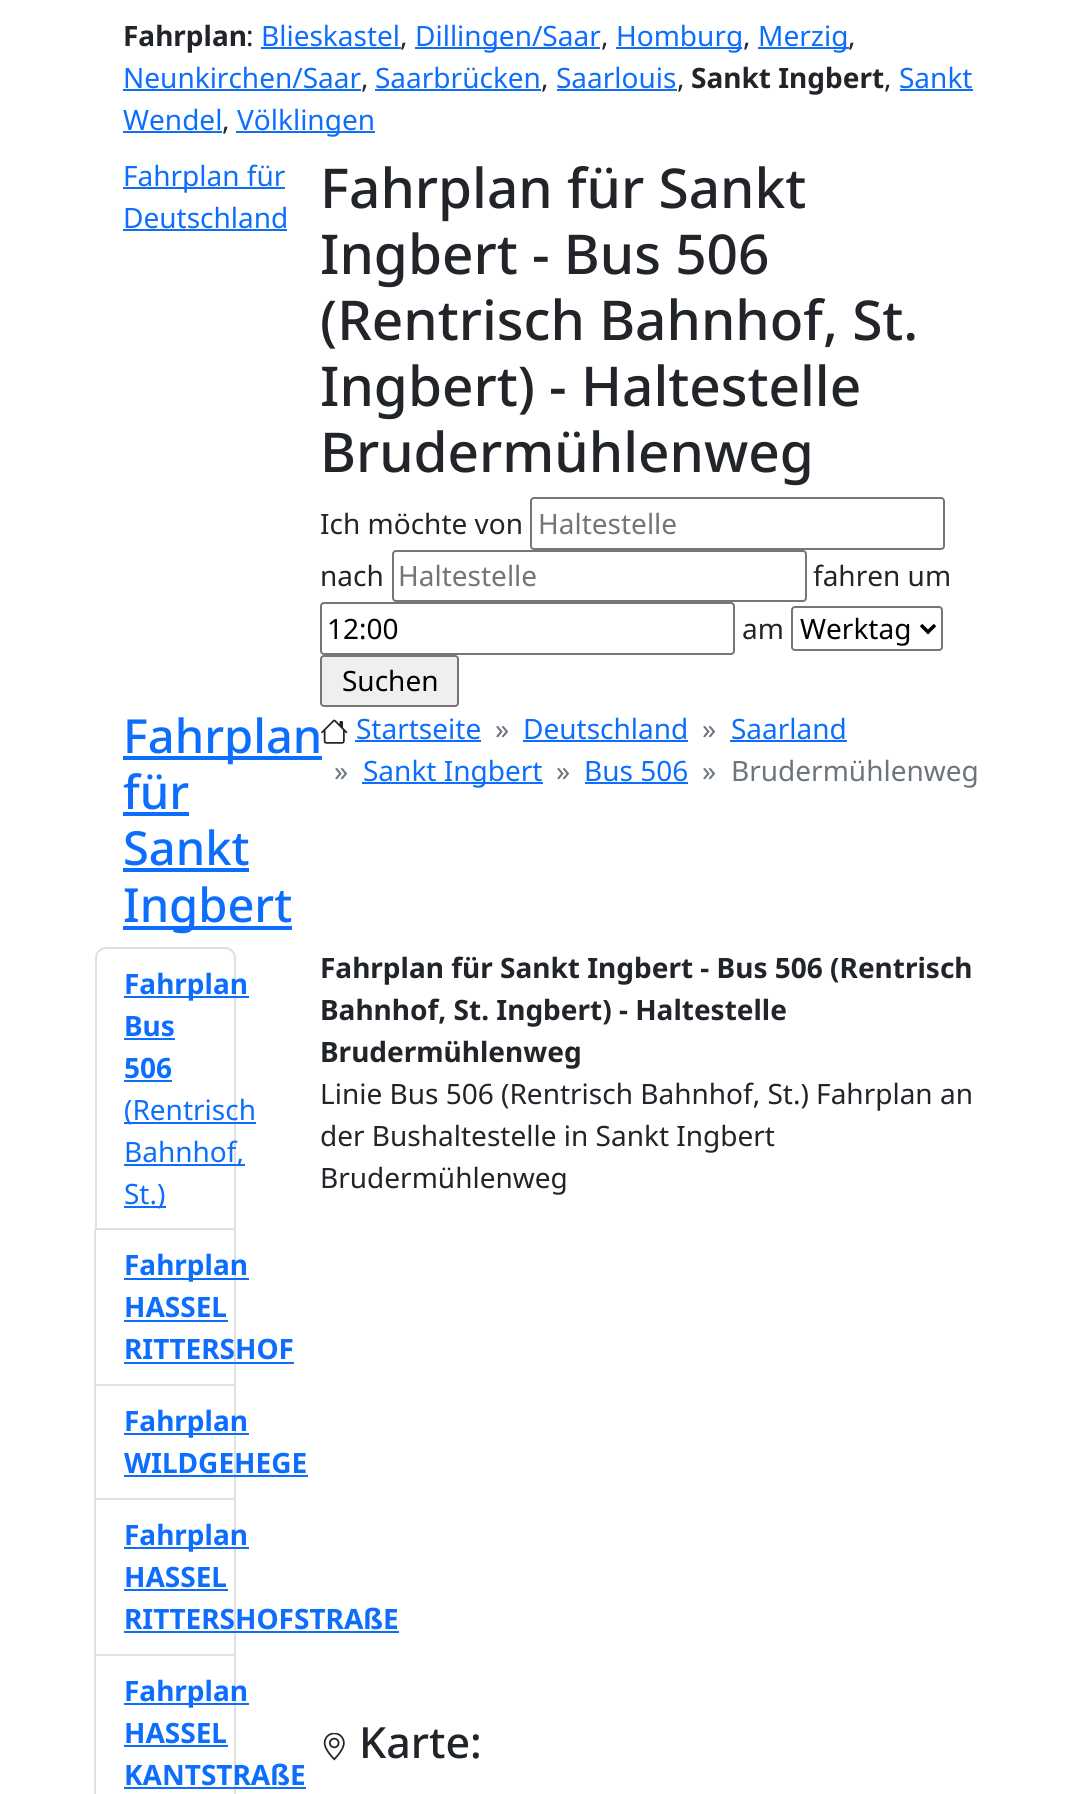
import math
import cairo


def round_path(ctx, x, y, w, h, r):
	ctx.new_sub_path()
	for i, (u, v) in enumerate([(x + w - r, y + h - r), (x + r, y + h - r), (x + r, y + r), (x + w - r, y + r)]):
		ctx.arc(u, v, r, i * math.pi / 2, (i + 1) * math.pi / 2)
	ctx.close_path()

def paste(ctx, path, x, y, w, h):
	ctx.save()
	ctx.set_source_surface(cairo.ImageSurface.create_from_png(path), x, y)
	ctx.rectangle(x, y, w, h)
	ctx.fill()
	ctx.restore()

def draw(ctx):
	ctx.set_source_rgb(1, 1, 1)
	ctx.paint()
	ctx.select_font_face('Noto Sans', cairo.FONT_SLANT_NORMAL, cairo.FONT_WEIGHT_BOLD)
	ctx.set_font_size(28)
	ctx.set_source_rgb(0.129, 0.145, 0.161)
	ctx.move_to(123, 46)
	ctx.show_text('Fahrplan')
	ctx.select_font_face('Noto Sans')
	ctx.move_to(246, 46)
	ctx.show_text(':')
	ctx.set_source_rgb(0.051, 0.431, 0.992)
	ctx.move_to(261, 46)
	ctx.show_text('Blieskastel')
	ctx.rectangle(261, 47, 140, 2)
	ctx.fill()
	ctx.set_source_rgb(0.129, 0.145, 0.161)
	ctx.move_to(400, 46)
	ctx.show_text(',')
	ctx.set_source_rgb(0.051, 0.431, 0.992)
	ctx.rectangle(415, 47, 185, 2)
	ctx.fill()
	ctx.move_to(415, 46)
	ctx.show_text('Dillingen/Saar')
	ctx.set_source_rgb(0.129, 0.145, 0.161)
	ctx.move_to(601, 46)
	ctx.show_text(',')
	ctx.set_source_rgb(0.051, 0.431, 0.992)
	ctx.rectangle(616, 47, 126, 2)
	ctx.fill()
	ctx.move_to(616, 46)
	ctx.show_text('Homburg')
	ctx.set_source_rgb(0.129, 0.145, 0.161)
	ctx.move_to(743, 46)
	ctx.show_text(',')
	ctx.set_source_rgb(0.051, 0.431, 0.992)
	ctx.rectangle(758, 47, 91, 2)
	ctx.fill()
	ctx.move_to(758, 46)
	ctx.show_text('Merzig')
	ctx.set_source_rgb(0.129, 0.145, 0.161)
	ctx.move_to(848, 46)
	ctx.show_text(',')
	ctx.set_source_rgb(0.051, 0.431, 0.992)
	ctx.move_to(123, 88)
	ctx.show_text('Neunkirchen/Saar')
	ctx.rectangle(123, 89, 238, 2)
	ctx.fill()
	ctx.set_source_rgb(0.129, 0.145, 0.161)
	ctx.move_to(361, 88)
	ctx.show_text(',')
	ctx.set_source_rgb(0.051, 0.431, 0.992)
	ctx.move_to(375, 88)
	ctx.show_text('Saarbrücken')
	ctx.rectangle(375, 89, 166, 2)
	ctx.fill()
	ctx.set_source_rgb(0.129, 0.145, 0.161)
	ctx.move_to(541, 88)
	ctx.show_text(',')
	ctx.set_source_rgb(0.051, 0.431, 0.992)
	ctx.move_to(556, 88)
	ctx.show_text('Saarlouis')
	ctx.rectangle(557, 89, 120, 2)
	ctx.fill()
	ctx.set_source_rgb(0.129, 0.145, 0.161)
	ctx.move_to(677, 88)
	ctx.show_text(',')
	ctx.select_font_face('Noto Sans', cairo.FONT_SLANT_NORMAL, cairo.FONT_WEIGHT_BOLD)
	ctx.move_to(691, 88)
	ctx.show_text('Sankt Ingbert')
	ctx.select_font_face('Noto Sans')
	ctx.move_to(884, 88)
	ctx.show_text(',')
	ctx.set_source_rgb(0.051, 0.431, 0.992)
	ctx.move_to(899, 88)
	ctx.show_text('Sankt')
	ctx.rectangle(900, 89, 73, 2)
	ctx.fill()
	ctx.move_to(123, 130)
	ctx.show_text('Wendel')
	ctx.rectangle(123, 131, 99, 2)
	ctx.fill()
	ctx.set_source_rgb(0.129, 0.145, 0.161)
	ctx.move_to(222, 130)
	ctx.show_text(',')
	ctx.set_source_rgb(0.051, 0.431, 0.992)
	ctx.rectangle(236, 131, 139, 2)
	ctx.fill()
	ctx.move_to(237, 130)
	ctx.show_text('Völklingen')
	ctx.rectangle(123, 187, 162, 2)
	ctx.fill()
	ctx.move_to(123, 186)
	ctx.show_text('Fahrplan für')
	ctx.move_to(123, 228)
	ctx.show_text('Deutschland')
	ctx.rectangle(123, 229, 164, 2)
	ctx.fill()
	ctx.select_font_face('Noto Sans Medium')
	ctx.set_font_size(54.9)
	ctx.set_source_rgb(0.129, 0.145, 0.161)
	for x, y, s in [
		(320, 208, 'Fahrplan für Sankt'),
		(320, 274, 'Ingbert - Bus 506'),
		(320, 340, '(Rentrisch Bahnhof, St.'),
		(320, 406, 'Ingbert) - Haltestelle'),
		(320, 472, 'Brudermühlenweg'),
	]:
		ctx.move_to(x, y)
		ctx.show_text(s)
	ctx.select_font_face('Noto Sans')
	ctx.set_font_size(28)
	ctx.move_to(320, 534)
	ctx.show_text('Ich möchte von')
	round_path(ctx, 531, 498, 413, 51, 3)
	ctx.set_source_rgb(0.463, 0.463, 0.463)
	ctx.stroke()
	ctx.set_source_rgb(0.459, 0.459, 0.459)
	ctx.move_to(538, 534)
	ctx.show_text('Haltestelle')
	ctx.set_source_rgb(0.129, 0.145, 0.161)
	ctx.move_to(320, 586)
	ctx.show_text('nach')
	round_path(ctx, 393, 551, 413, 50, 3)
	ctx.set_source_rgb(0.463, 0.463, 0.463)
	ctx.stroke()
	ctx.set_source_rgb(0.459, 0.459, 0.459)
	ctx.move_to(398, 586)
	ctx.show_text('Haltestelle')
	ctx.set_source_rgb(0.129, 0.145, 0.161)
	ctx.move_to(813, 586)
	ctx.show_text('fahren um')
	round_path(ctx, 321, 603, 413, 51, 3)
	ctx.set_source_rgb(0.463, 0.463, 0.463)
	ctx.stroke()
	ctx.set_source_rgb(0, 0, 0)
	ctx.move_to(327, 639)
	ctx.show_text('12:00')
	ctx.set_source_rgb(0.129, 0.145, 0.161)
	ctx.move_to(742, 639)
	ctx.show_text('am')
	round_path(ctx, 792, 607, 150, 43, 3)
	ctx.set_source_rgb(0.463, 0.463, 0.463)
	ctx.stroke()
	ctx.new_path()
	ctx.move_to(921, 625)
	ctx.line_to(928, 632)
	ctx.line_to(935, 625)
	ctx.set_source_rgb(0, 0, 0)
	ctx.set_line_width(3.5)
	ctx.stroke()
	ctx.move_to(800, 639)
	ctx.show_text('Werktag')
	ctx.set_source_rgb(0.937, 0.937, 0.937)
	round_path(ctx, 321, 656, 137, 50, 3)
	ctx.fill_preserve()
	ctx.set_source_rgb(0.463, 0.463, 0.463)
	ctx.set_line_width(2)
	ctx.stroke()
	ctx.set_source_rgb(0, 0, 0)
	ctx.move_to(342, 691)
	ctx.show_text('Suchen')
	ctx.set_source_rgb(0.051, 0.431, 0.992)
	ctx.rectangle(123, 756, 199, 4)
	ctx.fill()
	ctx.select_font_face('Noto Sans Medium')
	ctx.set_font_size(47)
	ctx.move_to(123, 753)
	ctx.show_text('Fahrplan')
	ctx.move_to(123, 809)
	ctx.show_text('für')
	ctx.rectangle(123, 812, 66, 4)
	ctx.fill()
	ctx.move_to(123, 865)
	ctx.show_text('Sankt')
	ctx.rectangle(123, 868, 126, 4)
	ctx.fill()
	ctx.rectangle(123, 926, 169, 4)
	ctx.fill()
	ctx.move_to(123, 922)
	ctx.show_text('Ingbert')
	paste(ctx, 'media/1.png', 321, 719, 27, 25)
	ctx.select_font_face('Noto Sans')
	ctx.set_font_size(28)
	ctx.move_to(356, 739)
	ctx.show_text('Startseite')
	ctx.rectangle(355, 740, 126, 2)
	ctx.fill()
	ctx.set_source_rgb(0.424, 0.459, 0.49)
	ctx.move_to(495, 739)
	ctx.show_text('»')
	ctx.set_source_rgb(0.051, 0.431, 0.992)
	ctx.move_to(523, 739)
	ctx.show_text('Deutschland')
	ctx.rectangle(523, 740, 165, 2)
	ctx.fill()
	ctx.set_source_rgb(0.424, 0.459, 0.49)
	ctx.move_to(702, 739)
	ctx.show_text('»')
	ctx.set_source_rgb(0.051, 0.431, 0.992)
	ctx.move_to(731, 739)
	ctx.show_text('Saarland')
	ctx.rectangle(730, 740, 117, 2)
	ctx.fill()
	ctx.set_source_rgb(0.424, 0.459, 0.49)
	ctx.move_to(334, 781)
	ctx.show_text('»')
	ctx.set_source_rgb(0.051, 0.431, 0.992)
	ctx.rectangle(362, 782, 181, 2)
	ctx.fill()
	ctx.move_to(363, 781)
	ctx.show_text('Sankt Ingbert')
	ctx.set_source_rgb(0.424, 0.459, 0.49)
	ctx.move_to(556, 781)
	ctx.show_text('»')
	ctx.set_source_rgb(0.051, 0.431, 0.992)
	ctx.move_to(584, 781)
	ctx.show_text('Bus 506')
	ctx.rectangle(585, 782, 103, 2)
	ctx.fill()
	ctx.set_source_rgb(0.424, 0.459, 0.49)
	ctx.move_to(702, 781)
	ctx.show_text('»')
	ctx.move_to(731, 781)
	ctx.show_text('Brudermühlenweg')
	ctx.new_path()
	ctx.move_to(106, 948)
	ctx.line_to(225, 948)
	ctx.curve_to(230.5, 948, 235, 952.5, 235, 958)
	ctx.line_to(235, 1229)
	ctx.line_to(96, 1229)
	ctx.line_to(96, 958)
	ctx.curve_to(96, 952.5, 100.5, 948, 106, 948)
	ctx.close_path()
	ctx.set_source_rgb(0.875, 0.875, 0.875)
	ctx.stroke()
	ctx.set_source_rgb(0.051, 0.431, 0.992)
	ctx.rectangle(124, 996, 125, 2)
	ctx.fill()
	ctx.select_font_face('Noto Sans', cairo.FONT_SLANT_NORMAL, cairo.FONT_WEIGHT_BOLD)
	ctx.move_to(124, 994)
	ctx.show_text('Fahrplan')
	ctx.move_to(124, 1036)
	ctx.show_text('Bus')
	ctx.rectangle(124, 1038, 51, 2)
	ctx.fill()
	ctx.move_to(124, 1078)
	ctx.show_text('506')
	ctx.rectangle(124, 1080, 48, 2)
	ctx.fill()
	ctx.rectangle(124, 1122, 132, 2)
	ctx.fill()
	ctx.select_font_face('Noto Sans')
	ctx.move_to(124, 1120)
	ctx.show_text('(Rentrisch')
	ctx.rectangle(124, 1164, 121, 2)
	ctx.fill()
	ctx.move_to(124, 1162)
	ctx.show_text('Bahnhof,')
	ctx.rectangle(124, 1206, 42, 2)
	ctx.fill()
	ctx.move_to(124, 1204)
	ctx.show_text('St.)')
	ctx.set_source_rgb(0.875, 0.875, 0.875)
	ctx.new_path()
	ctx.move_to(236, 1230)
	ctx.line_to(236, 1386)
	ctx.line_to(234, 1384)
	ctx.line_to(234, 1230)
	ctx.close_path()
	ctx.fill()
	ctx.set_source_rgba(0, 0, 0, 0.12)
	ctx.new_path()
	ctx.move_to(236, 1386)
	ctx.line_to(94, 1386)
	ctx.line_to(96, 1384)
	ctx.line_to(234, 1384)
	ctx.close_path()
	ctx.fill()
	ctx.new_path()
	ctx.move_to(94, 1386)
	ctx.line_to(94, 1230)
	ctx.line_to(96, 1230)
	ctx.line_to(96, 1384)
	ctx.close_path()
	ctx.fill()
	ctx.set_source_rgb(0.051, 0.431, 0.992)
	ctx.rectangle(124, 1278, 125, 2)
	ctx.fill()
	ctx.select_font_face('Noto Sans', cairo.FONT_SLANT_NORMAL, cairo.FONT_WEIGHT_BOLD)
	ctx.move_to(124, 1275)
	ctx.show_text('Fahrplan')
	ctx.move_to(124, 1317)
	ctx.show_text('HASSEL')
	ctx.rectangle(124, 1320, 104, 2)
	ctx.fill()
	ctx.move_to(124, 1359)
	ctx.show_text('RITTERSHOF')
	ctx.rectangle(124, 1362, 170, 2)
	ctx.fill()
	ctx.set_source_rgb(0.875, 0.875, 0.875)
	ctx.new_path()
	ctx.move_to(236, 1386)
	ctx.line_to(236, 1500)
	ctx.line_to(234, 1498)
	ctx.line_to(234, 1386)
	ctx.close_path()
	ctx.fill()
	ctx.set_source_rgba(0, 0, 0, 0.12)
	ctx.new_path()
	ctx.move_to(236, 1500)
	ctx.line_to(94, 1500)
	ctx.line_to(96, 1498)
	ctx.line_to(234, 1498)
	ctx.close_path()
	ctx.fill()
	ctx.new_path()
	ctx.move_to(94, 1500)
	ctx.line_to(94, 1386)
	ctx.line_to(96, 1386)
	ctx.line_to(96, 1498)
	ctx.close_path()
	ctx.fill()
	ctx.set_source_rgb(0.051, 0.431, 0.992)
	ctx.rectangle(124, 1433, 125, 2)
	ctx.fill()
	ctx.move_to(124, 1431)
	ctx.show_text('Fahrplan')
	ctx.move_to(124, 1473)
	ctx.show_text('WILDGEHEGE')
	ctx.rectangle(124, 1475, 184, 2)
	ctx.fill()
	ctx.set_source_rgb(0.875, 0.875, 0.875)
	ctx.new_path()
	ctx.move_to(236, 1500)
	ctx.line_to(236, 1656)
	ctx.line_to(234, 1654)
	ctx.line_to(234, 1500)
	ctx.close_path()
	ctx.fill()
	ctx.set_source_rgba(0, 0, 0, 0.12)
	ctx.new_path()
	ctx.move_to(236, 1656)
	ctx.line_to(94, 1656)
	ctx.line_to(96, 1654)
	ctx.line_to(234, 1654)
	ctx.close_path()
	ctx.fill()
	ctx.new_path()
	ctx.move_to(94, 1656)
	ctx.line_to(94, 1500)
	ctx.line_to(96, 1500)
	ctx.line_to(96, 1654)
	ctx.close_path()
	ctx.fill()
	ctx.set_source_rgb(0.051, 0.431, 0.992)
	ctx.rectangle(124, 1547, 125, 2)
	ctx.fill()
	ctx.move_to(124, 1545)
	ctx.show_text('Fahrplan')
	ctx.move_to(124, 1587)
	ctx.show_text('HASSEL')
	ctx.rectangle(124, 1589, 104, 2)
	ctx.fill()
	ctx.move_to(124, 1629)
	ctx.show_text('RITTERSHOFSTRAßE')
	ctx.rectangle(124, 1631, 275, 2)
	ctx.fill()
	ctx.set_source_rgb(0.875, 0.875, 0.875)
	ctx.new_path()
	ctx.move_to(236, 1656)
	ctx.line_to(236, 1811)
	ctx.line_to(234, 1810)
	ctx.line_to(234, 1656)
	ctx.close_path()
	ctx.fill()
	ctx.new_path()
	ctx.move_to(94, 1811)
	ctx.line_to(94, 1656)
	ctx.line_to(96, 1656)
	ctx.line_to(96, 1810)
	ctx.close_path()
	ctx.fill()
	ctx.set_source_rgb(0.051, 0.431, 0.992)
	ctx.rectangle(124, 1703, 125, 2)
	ctx.fill()
	ctx.move_to(124, 1701)
	ctx.show_text('Fahrplan')
	ctx.move_to(124, 1743)
	ctx.show_text('HASSEL')
	ctx.rectangle(124, 1745, 104, 2)
	ctx.fill()
	ctx.move_to(124, 1785)
	ctx.show_text('KANTSTRAßE')
	ctx.rectangle(124, 1787, 182, 2)
	ctx.fill()
	ctx.set_source_rgb(0.129, 0.145, 0.161)
	for x, y, s in [
		(320, 978, 'Fahrplan für Sankt Ingbert - Bus 506 (Rentrisch'),
		(320, 1020, 'Bahnhof, St. Ingbert) - Haltestelle'),
		(320, 1062, 'Brudermühlenweg'),
	]:
		ctx.move_to(x, y)
		ctx.show_text(s)
	ctx.select_font_face('Noto Sans')
	for x, y, s in [
		(320, 1104, 'Linie Bus 506 (Rentrisch Bahnhof, St.) Fahrplan an'),
		(320, 1146, 'der Bushaltestelle in Sankt Ingbert'),
		(320, 1188, 'Brudermühlenweg'),
	]:
		ctx.move_to(x, y)
		ctx.show_text(s)
	paste(ctx, 'media/2.png', 323, 1733, 22, 28)
	ctx.select_font_face('Noto Sans Medium')
	ctx.set_font_size(43)
	ctx.move_to(359, 1758)
	ctx.show_text('Karte:')


surface = cairo.ImageSurface(cairo.FORMAT_RGB24, 1092, 1794)
ctx = cairo.Context(surface)
options = cairo.FontOptions()
options.set_hint_metrics(cairo.HINT_METRICS_OFF)
options.set_hint_style(cairo.HINT_STYLE_NONE)
ctx.set_font_options(options)
ctx.set_miter_limit(4)
draw(ctx)
surface.write_to_png('image.png')
